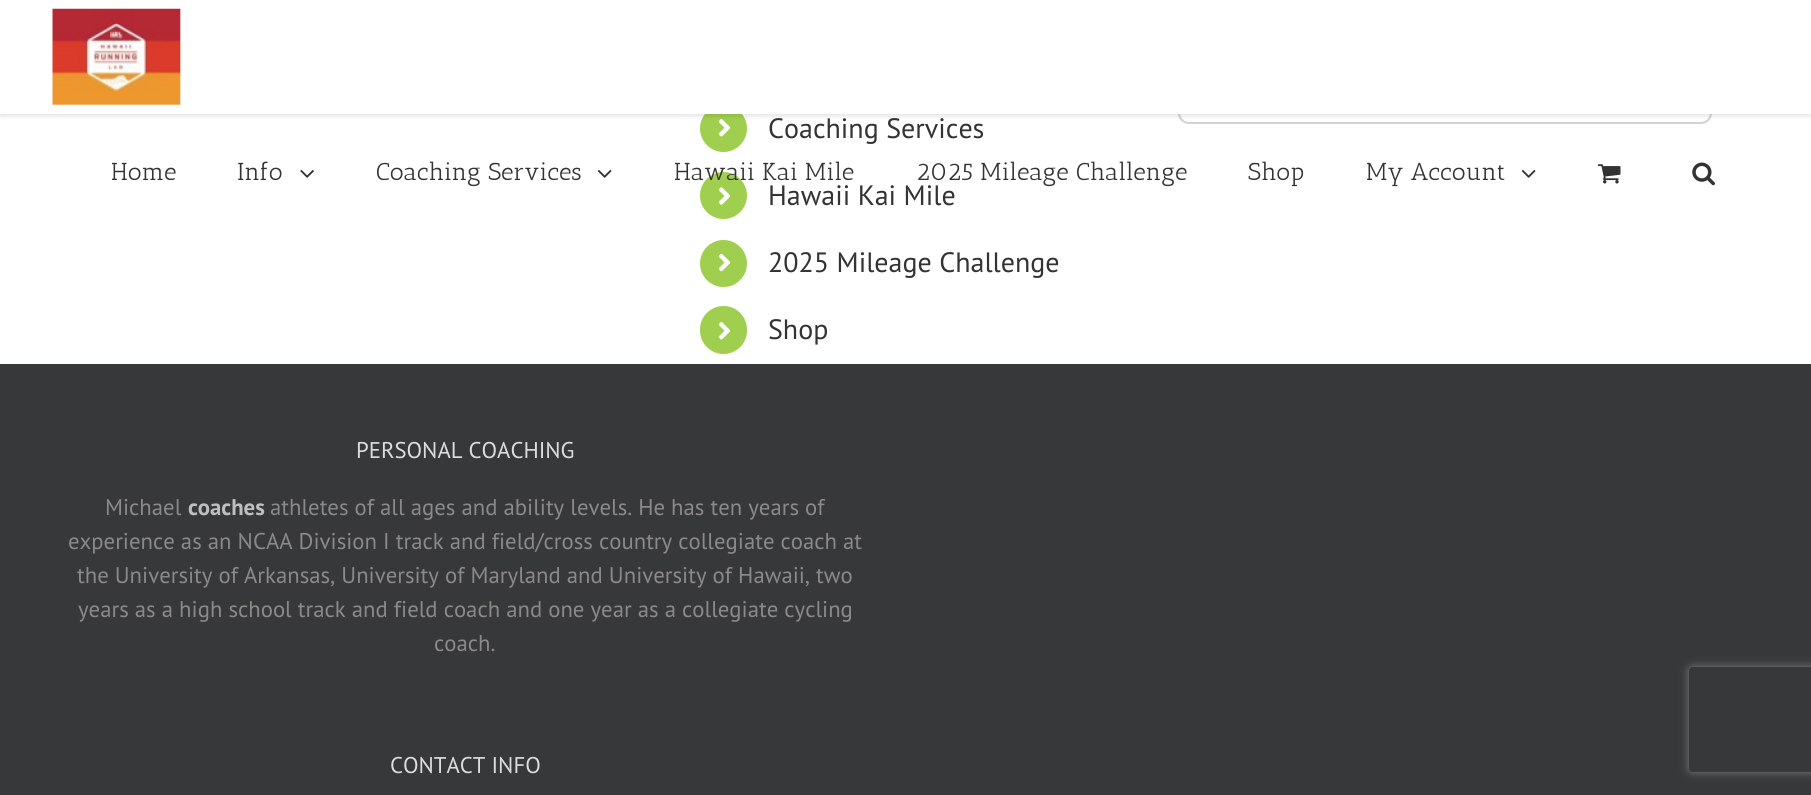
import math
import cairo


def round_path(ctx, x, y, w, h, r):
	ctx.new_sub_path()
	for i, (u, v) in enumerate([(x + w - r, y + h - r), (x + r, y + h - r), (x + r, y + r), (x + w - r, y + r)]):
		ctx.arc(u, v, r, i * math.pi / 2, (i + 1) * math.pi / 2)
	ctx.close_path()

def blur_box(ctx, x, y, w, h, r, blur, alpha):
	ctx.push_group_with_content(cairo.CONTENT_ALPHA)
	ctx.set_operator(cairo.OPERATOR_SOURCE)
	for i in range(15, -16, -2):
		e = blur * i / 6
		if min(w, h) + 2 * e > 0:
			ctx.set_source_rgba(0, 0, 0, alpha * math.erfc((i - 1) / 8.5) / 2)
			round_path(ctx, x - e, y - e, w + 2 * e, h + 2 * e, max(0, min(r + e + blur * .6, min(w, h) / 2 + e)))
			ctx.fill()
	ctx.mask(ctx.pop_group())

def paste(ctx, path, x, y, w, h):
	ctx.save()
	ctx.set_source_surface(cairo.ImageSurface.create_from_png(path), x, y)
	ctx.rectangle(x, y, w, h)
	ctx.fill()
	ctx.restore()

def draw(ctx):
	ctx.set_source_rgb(1, 1, 1)
	ctx.paint()
	round_path(ctx, 1179, 75, 532, 48, 10)
	ctx.set_source_rgb(0.824, 0.824, 0.824)
	ctx.stroke()
	ctx.set_source_rgb(0.627, 0.808, 0.306)
	ctx.arc(723.5, 128.5, 23.5, 0, 2 * math.pi)
	ctx.fill()
	paste(ctx, 'media/1.png', 718, 119, 13, 18)
	ctx.select_font_face('PT Sans')
	ctx.set_font_size(28)
	ctx.set_source_rgb(0.2, 0.2, 0.2)
	ctx.move_to(768, 138)
	ctx.show_text('Coaching Services')
	ctx.set_source_rgb(0.627, 0.808, 0.306)
	ctx.new_path()
	ctx.arc(723.5, 195.5, 23.5, 0, 2 * math.pi)
	ctx.fill()
	paste(ctx, 'media/2.png', 718, 187, 13, 18)
	ctx.set_source_rgb(0.2, 0.2, 0.2)
	ctx.move_to(768, 205)
	ctx.show_text('Hawaii Kai Mile')
	ctx.set_source_rgb(0.627, 0.808, 0.306)
	ctx.new_path()
	ctx.arc(723.5, 263.5, 23.5, 0, 2 * math.pi)
	ctx.fill()
	paste(ctx, 'media/3.png', 718, 253, 13, 19)
	ctx.set_source_rgb(0.2, 0.2, 0.2)
	ctx.move_to(768, 272)
	ctx.show_text('2025 Mileage Challenge')
	ctx.set_source_rgb(0.627, 0.808, 0.306)
	round_path(ctx, 700, 306, 47, 48, 23.5)
	ctx.fill()
	paste(ctx, 'media/1.png', 718, 322, 13, 18)
	ctx.set_source_rgb(0.2, 0.2, 0.2)
	ctx.move_to(768, 339)
	ctx.show_text('Shop')
	ctx.set_source_rgb(0, 0, 0)
	blur_box(ctx, 0, 2, 1811, 114, 0, 2.5, 0.12)
	ctx.set_source_rgb(1, 1, 1)
	ctx.rectangle(0, 0, 1811, 114)
	ctx.fill()
	paste(ctx, 'media/4.png', 52, 8, 129, 97)
	ctx.select_font_face('Antic Slab')
	ctx.set_font_size(24.5)
	ctx.set_source_rgb(0.2, 0.2, 0.2)
	ctx.move_to(111, 180)
	ctx.show_text('Home')
	ctx.move_to(237, 180)
	ctx.show_text('Info')
	paste(ctx, 'media/5.png', 300, 170, 14, 8)
	ctx.move_to(376, 180)
	ctx.show_text('Coaching Services')
	paste(ctx, 'media/6.png', 597, 170, 15, 8)
	for x, y, s in [
		(674, 180, 'Hawaii Kai Mile'),
		(916, 180, '2025 Mileage Challenge'),
		(1248, 180, 'Shop'),
		(1366, 180, 'My Account'),
	]:
		ctx.move_to(x, y)
		ctx.show_text(s)
	paste(ctx, 'media/6.png', 1521, 170, 15, 8)
	paste(ctx, 'media/7.png', 1597, 164, 24, 20)
	paste(ctx, 'media/8.png', 1692, 162, 23, 24)
	ctx.set_source_rgb(0.212, 0.22, 0.224)
	ctx.rectangle(0, 364, 1811, 431)
	ctx.fill()
	ctx.select_font_face('PT Sans')
	ctx.set_font_size(22.75)
	ctx.set_source_rgb(0.867, 0.867, 0.867)
	ctx.move_to(356, 458)
	ctx.show_text('PERSONAL COACHING')
	ctx.set_source_rgb(0.549, 0.537, 0.537)
	ctx.move_to(105, 515)
	ctx.show_text('Michael')
	ctx.select_font_face('PT Sans', cairo.FONT_SLANT_NORMAL, cairo.FONT_WEIGHT_BOLD)
	ctx.set_source_rgb(0.749, 0.749, 0.749)
	ctx.move_to(188, 515)
	ctx.show_text('coaches')
	ctx.select_font_face('PT Sans')
	ctx.set_source_rgb(0.549, 0.537, 0.537)
	for x, y, s in [
		(270, 515, 'athletes of all ages and ability levels. He has ten years of'),
		(68, 549, 'experience as an NCAA Division I track and field/cross country collegiate coach at'),
		(77, 583, 'the University of Arkansas, University of Maryland and University of Hawaii, two'),
		(78, 617, 'years as a high school track and field coach and one year as a collegiate cycling'),
		(434, 651, 'coach.'),
	]:
		ctx.move_to(x, y)
		ctx.show_text(s)
	ctx.set_source_rgb(0.867, 0.867, 0.867)
	ctx.move_to(390, 773)
	ctx.show_text('CONTACT INFO')
	ctx.save()
	ctx.set_fill_rule(cairo.FILL_RULE_EVEN_ODD)
	ctx.new_path()
	ctx.move_to(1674, 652)
	ctx.line_to(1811, 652)
	ctx.line_to(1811, 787)
	ctx.line_to(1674, 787)
	ctx.close_path()
	ctx.move_to(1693, 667)
	ctx.line_to(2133, 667)
	ctx.curve_to(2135, 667, 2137, 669, 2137, 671)
	ctx.line_to(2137, 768)
	ctx.curve_to(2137, 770, 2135, 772, 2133, 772)
	ctx.line_to(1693, 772)
	ctx.curve_to(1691, 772, 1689, 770, 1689, 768)
	ctx.line_to(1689, 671)
	ctx.curve_to(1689, 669, 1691, 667, 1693, 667)
	ctx.close_path()
	ctx.clip()
	ctx.set_source_rgb(0.502, 0.502, 0.502)
	blur_box(ctx, 1689, 667, 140, 105, 4, 4.5, 1)
	ctx.restore()


surface = cairo.ImageSurface(cairo.FORMAT_RGB24, 1811, 795)
ctx = cairo.Context(surface)
options = cairo.FontOptions()
options.set_hint_metrics(cairo.HINT_METRICS_OFF)
options.set_hint_style(cairo.HINT_STYLE_NONE)
ctx.set_font_options(options)
ctx.set_miter_limit(4)
draw(ctx)
surface.write_to_png('image.png')
